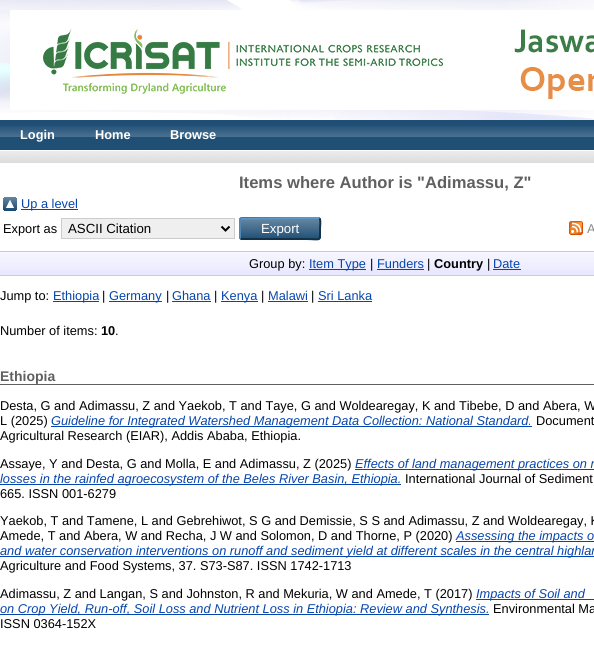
import math
import cairo


def round_path(ctx, x, y, w, h, r):
	ctx.new_sub_path()
	for i, (u, v) in enumerate([(x + w - r, y + h - r), (x + r, y + h - r), (x + r, y + r), (x + w - r, y + r)]):
		ctx.arc(u, v, r, i * math.pi / 2, (i + 1) * math.pi / 2)
	ctx.close_path()

def paste(ctx, path, x, y, w, h):
	ctx.save()
	ctx.set_source_surface(cairo.ImageSurface.create_from_png(path), x, y)
	ctx.rectangle(x, y, w, h)
	ctx.fill()
	ctx.restore()

def draw(ctx):
	ctx.set_source_rgb(1, 1, 1)
	ctx.paint()
	paste(ctx, 'media/1.png', 0, 0, 594, 120)
	paste(ctx, 'media/2.png', 10, 10, 584, 100)
	ctx.set_source_rgb(0.125, 0.31, 0.463)
	ctx.rectangle(0, 120, 594, 30)
	ctx.fill()
	paste(ctx, 'media/3.png', 0, 126, 594, 11)
	ctx.select_font_face('Liberation Sans', cairo.FONT_SLANT_NORMAL, cairo.FONT_WEIGHT_BOLD)
	ctx.set_font_size(12.8)
	ctx.set_source_rgb(1, 1, 1)
	for x, y, s in [
		(20, 139, 'Login'),
		(95, 139, 'Home'),
		(170, 139, 'Browse'),
	]:
		ctx.move_to(x, y)
		ctx.show_text(s)
	ctx.set_source_rgb(0.8, 0.8, 0.8)
	ctx.rectangle(0, 151, 594, 12)
	ctx.fill()
	paste(ctx, 'media/4.png', 0, 151, 594, 12)
	ctx.set_font_size(16.6)
	ctx.set_source_rgb(0.376, 0.376, 0.376)
	ctx.move_to(239, 188)
	ctx.show_text('Items where Author is "Adimassu, Z"')
	paste(ctx, 'media/5.png', 3, 197, 14, 14)
	ctx.set_source_rgb(0.024, 0.271, 0.678)
	ctx.rectangle(21, 209, 57, 1)
	ctx.fill()
	ctx.select_font_face('Liberation Sans')
	ctx.set_font_size(12.8)
	ctx.move_to(21, 208)
	ctx.show_text('Up a level')
	ctx.set_source_rgb(0, 0, 0)
	ctx.move_to(3, 233)
	ctx.show_text('Export as')
	ctx.set_source_rgb(0.937, 0.937, 0.937)
	ctx.rectangle(61.5, 218.5, 173, 20)
	ctx.fill_preserve()
	ctx.set_source_rgb(0.8, 0.8, 0.8)
	ctx.set_line_width(1)
	ctx.stroke()
	ctx.new_path()
	ctx.move_to(221.5, 226.5)
	ctx.line_to(225.5, 230.5)
	ctx.line_to(229.5, 226.5)
	ctx.set_source_rgb(0, 0, 0)
	ctx.set_line_width(2)
	ctx.stroke()
	ctx.set_font_size(13.25)
	ctx.move_to(68, 233)
	ctx.show_text('ASCII Citation')
	ctx.set_source_rgb(0.122, 0.31, 0.463)
	round_path(ctx, 239, 217, 82, 23, 3)
	ctx.fill()
	paste(ctx, 'media/6.png', 239, 219, 82, 19)
	ctx.new_path()
	ctx.move_to(240.5, 218.5)
	ctx.line_to(305.5, 218)
	ctx.line_to(318, 218)
	ctx.line_to(319.5, 218.5)
	ctx.set_source_rgb(0.357, 0.592, 0.78)
	ctx.stroke()
	ctx.new_path()
	ctx.move_to(319.5, 218.5)
	ctx.curve_to(321, 220, 320, 226.5, 320, 228.5)
	ctx.curve_to(320, 242.5, 321.5, 239, 305.5, 239)
	ctx.line_to(242, 239)
	ctx.line_to(240.5, 238.5)
	ctx.set_source_rgb(0.075, 0.196, 0.29)
	ctx.stroke()
	ctx.new_path()
	ctx.move_to(240.5, 238.5)
	ctx.curve_to(240, 238, 240, 237.5, 240, 237)
	ctx.line_to(240, 220)
	ctx.curve_to(240, 219.5, 240, 219, 240.5, 218.5)
	ctx.set_source_rgb(0.322, 0.529, 0.702)
	ctx.stroke()
	ctx.set_source_rgb(1, 1, 1)
	ctx.move_to(261, 233)
	ctx.show_text('Export')
	paste(ctx, 'media/7.png', 569, 221, 14, 14)
	ctx.set_font_size(12.8)
	ctx.set_source_rgb(0.533, 0.533, 0.533)
	ctx.move_to(587, 233)
	ctx.show_text('A')
	ctx.set_source_rgb(0.91, 0.91, 1)
	ctx.rectangle(0, 252, 594, 23)
	ctx.fill()
	paste(ctx, 'media/8.png', 0, 252, 594, 18)
	ctx.set_source_rgb(0.8, 0.8, 0.8)
	ctx.rectangle(0, 251, 594, 1)
	ctx.fill()
	ctx.rectangle(0, 275, 594, 1)
	ctx.fill()
	ctx.set_source_rgb(0, 0, 0)
	ctx.move_to(249, 268)
	ctx.show_text('Group by:')
	ctx.set_source_rgb(0.024, 0.271, 0.678)
	ctx.rectangle(309, 269, 57, 1)
	ctx.fill()
	ctx.move_to(309, 268)
	ctx.show_text('Item Type')
	ctx.set_source_rgb(0, 0, 0)
	ctx.move_to(370, 268)
	ctx.show_text('|')
	ctx.set_source_rgb(0.024, 0.271, 0.678)
	ctx.move_to(377, 268)
	ctx.show_text('Funders')
	ctx.rectangle(377, 269, 47, 1)
	ctx.fill()
	ctx.set_source_rgb(0, 0, 0)
	ctx.move_to(427, 268)
	ctx.show_text('|')
	ctx.select_font_face('Liberation Sans', cairo.FONT_SLANT_NORMAL, cairo.FONT_WEIGHT_BOLD)
	ctx.move_to(434, 268)
	ctx.show_text('Country')
	ctx.select_font_face('Liberation Sans')
	ctx.move_to(487, 268)
	ctx.show_text('|')
	ctx.set_source_rgb(0.024, 0.271, 0.678)
	ctx.move_to(493, 268)
	ctx.show_text('Date')
	ctx.rectangle(493, 269, 28, 1)
	ctx.fill()
	ctx.set_source_rgb(0, 0, 0)
	ctx.move_to(0, 300)
	ctx.show_text('Jump to:')
	ctx.set_source_rgb(0.024, 0.271, 0.678)
	ctx.rectangle(53, 301, 46, 1)
	ctx.fill()
	ctx.move_to(53, 300)
	ctx.show_text('Ethiopia')
	ctx.set_source_rgb(0, 0, 0)
	ctx.move_to(102, 300)
	ctx.show_text('|')
	ctx.set_source_rgb(0.024, 0.271, 0.678)
	ctx.rectangle(109, 301, 53, 1)
	ctx.fill()
	ctx.move_to(109, 300)
	ctx.show_text('Germany')
	ctx.set_source_rgb(0, 0, 0)
	ctx.move_to(166, 300)
	ctx.show_text('|')
	ctx.set_source_rgb(0.024, 0.271, 0.678)
	ctx.move_to(172, 300)
	ctx.show_text('Ghana')
	ctx.rectangle(172, 301, 39, 1)
	ctx.fill()
	ctx.set_source_rgb(0, 0, 0)
	ctx.move_to(214, 300)
	ctx.show_text('|')
	ctx.set_source_rgb(0.024, 0.271, 0.678)
	ctx.rectangle(221, 301, 37, 1)
	ctx.fill()
	ctx.move_to(221, 300)
	ctx.show_text('Kenya')
	ctx.set_source_rgb(0, 0, 0)
	ctx.move_to(261, 300)
	ctx.show_text('|')
	ctx.set_source_rgb(0.024, 0.271, 0.678)
	ctx.move_to(268, 300)
	ctx.show_text('Malawi')
	ctx.rectangle(268, 301, 40, 1)
	ctx.fill()
	ctx.set_source_rgb(0, 0, 0)
	ctx.move_to(311, 300)
	ctx.show_text('|')
	ctx.set_source_rgb(0.024, 0.271, 0.678)
	ctx.move_to(318, 300)
	ctx.show_text('Sri Lanka')
	ctx.rectangle(318, 301, 54, 1)
	ctx.fill()
	ctx.set_source_rgb(0, 0, 0)
	ctx.move_to(0, 335)
	ctx.show_text('Number of items:')
	ctx.select_font_face('Liberation Sans', cairo.FONT_SLANT_NORMAL, cairo.FONT_WEIGHT_BOLD)
	ctx.move_to(101, 335)
	ctx.show_text('10')
	ctx.select_font_face('Liberation Sans')
	ctx.move_to(115, 335)
	ctx.show_text('.')
	ctx.set_source_rgb(0.376, 0.376, 0.376)
	ctx.rectangle(0, 384, 594, 1)
	ctx.fill()
	ctx.select_font_face('Liberation Sans', cairo.FONT_SLANT_NORMAL, cairo.FONT_WEIGHT_BOLD)
	ctx.set_font_size(14)
	ctx.move_to(0, 381)
	ctx.show_text('Ethiopia')
	ctx.select_font_face('Liberation Sans')
	ctx.set_font_size(12.8)
	ctx.set_source_rgb(0, 0, 0)
	ctx.move_to(0, 410)
	ctx.show_text('Desta, G and Adimassu, Z and Yaekob, T and Taye, G and Woldearegay, K and Tibebe, D and Abera, W')
	ctx.move_to(0, 425)
	ctx.show_text('L (2025)')
	ctx.set_source_rgb(0.024, 0.271, 0.678)
	ctx.rectangle(51, 426, 481, 1)
	ctx.fill()
	ctx.select_font_face('Liberation Sans', cairo.FONT_SLANT_ITALIC)
	ctx.move_to(51, 425)
	ctx.show_text('Guideline for Integrated Watershed Management Data Collection: National Standard.')
	ctx.select_font_face('Liberation Sans')
	ctx.set_source_rgb(0, 0, 0)
	for x, y, s in [
		(536, 425, 'Document'),
		(0, 440, 'Agricultural Research (EIAR), Addis Ababa, Ethiopia.'),
		(0, 468, 'Assaye, Y and Desta, G and Molla, E and Adimassu, Z (2025)'),
	]:
		ctx.move_to(x, y)
		ctx.show_text(s)
	ctx.set_source_rgb(0.024, 0.271, 0.678)
	ctx.rectangle(355, 469, 239, 1)
	ctx.fill()
	ctx.select_font_face('Liberation Sans', cairo.FONT_SLANT_ITALIC)
	ctx.move_to(355, 468)
	ctx.show_text('Effects of land management practices on r')
	ctx.rectangle(0, 484, 401, 1)
	ctx.fill()
	ctx.move_to(0, 483)
	ctx.show_text('losses in the rainfed agroecosystem of the Beles River Basin, Ethiopia.')
	ctx.select_font_face('Liberation Sans')
	ctx.set_source_rgb(0, 0, 0)
	for x, y, s in [
		(405, 483, 'International Journal of Sediment'),
		(0, 498, '665. ISSN 001-6279'),
		(0, 525, 'Yaekob, T and Tamene, L and Gebrehiwot, S G and Demissie, S S and Adimassu, Z and Woldearegay, K'),
		(0, 540, 'Amede, T and Abera, W and Recha, J W and Solomon, D and Thorne, P (2020)'),
	]:
		ctx.move_to(x, y)
		ctx.show_text(s)
	ctx.set_source_rgb(0.024, 0.271, 0.678)
	ctx.rectangle(456, 541, 138, 1)
	ctx.fill()
	ctx.select_font_face('Liberation Sans', cairo.FONT_SLANT_ITALIC)
	ctx.move_to(456, 540)
	ctx.show_text('Assessing the impacts o')
	ctx.rectangle(0, 556, 594, 1)
	ctx.fill()
	ctx.move_to(0, 555)
	ctx.show_text('and water conservation interventions on runoff and sediment yield at different scales in the central highlan')
	ctx.select_font_face('Liberation Sans')
	ctx.set_source_rgb(0, 0, 0)
	ctx.move_to(0, 570)
	ctx.show_text('Agriculture and Food Systems, 37. S73-S87. ISSN 1742-1713')
	ctx.move_to(0, 598)
	ctx.show_text('Adimassu, Z and Langan, S and Johnston, R and Mekuria, W and Amede, T (2017)')
	ctx.set_source_rgb(0.024, 0.271, 0.678)
	ctx.rectangle(476, 599, 118, 1)
	ctx.fill()
	ctx.select_font_face('Liberation Sans', cairo.FONT_SLANT_ITALIC)
	ctx.move_to(476, 598)
	ctx.show_text('Impacts of Soil and')
	ctx.rectangle(0, 614, 489, 1)
	ctx.fill()
	ctx.move_to(0, 613)
	ctx.show_text('on Crop Yield, Run-off, Soil Loss and Nutrient Loss in Ethiopia: Review and Synthesis.')
	ctx.select_font_face('Liberation Sans')
	ctx.set_source_rgb(0, 0, 0)
	ctx.move_to(493, 613)
	ctx.show_text('Environmental Ma')
	ctx.move_to(0, 628)
	ctx.show_text('ISSN 0364-152X')


surface = cairo.ImageSurface(cairo.FORMAT_RGB24, 594, 659)
ctx = cairo.Context(surface)
options = cairo.FontOptions()
options.set_hint_metrics(cairo.HINT_METRICS_OFF)
options.set_hint_style(cairo.HINT_STYLE_NONE)
ctx.set_font_options(options)
ctx.set_miter_limit(4)
draw(ctx)
surface.write_to_png('image.png')
